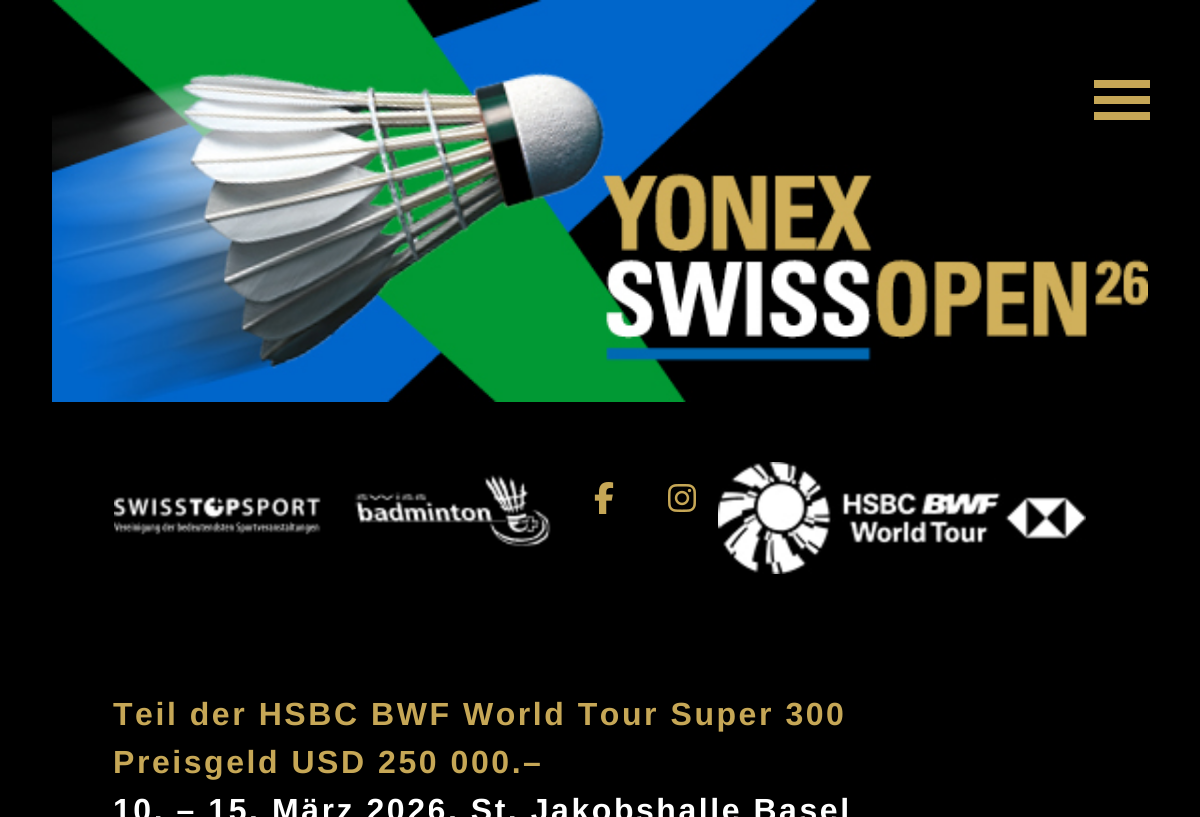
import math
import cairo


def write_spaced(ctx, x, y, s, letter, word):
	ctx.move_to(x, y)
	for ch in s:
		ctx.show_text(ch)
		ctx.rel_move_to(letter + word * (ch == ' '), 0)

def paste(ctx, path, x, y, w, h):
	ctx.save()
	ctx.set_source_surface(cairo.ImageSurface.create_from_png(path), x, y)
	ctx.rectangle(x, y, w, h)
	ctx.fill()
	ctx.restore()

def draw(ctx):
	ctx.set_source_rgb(0, 0, 0)
	ctx.paint()
	paste(ctx, 'media/1.png', 52, 0, 1096, 402)
	ctx.set_source_rgb(0.776, 0.655, 0.337)
	ctx.rectangle(1094, 80, 56, 8)
	ctx.rectangle(1094, 96, 56, 8)
	ctx.rectangle(1094, 112, 56, 8)
	ctx.fill()
	paste(ctx, 'media/2.png', 114, 495, 207, 40)
	paste(ctx, 'media/3.png', 354, 474, 197, 73)
	paste(ctx, 'media/4.png', 594, 482, 20, 32)
	paste(ctx, 'media/5.png', 668, 484, 28, 28)
	paste(ctx, 'media/6.png', 718, 462, 368, 112)
	ctx.select_font_face('Liberation Sans', cairo.FONT_SLANT_NORMAL, cairo.FONT_WEIGHT_BOLD)
	ctx.set_font_size(32)
	write_spaced(ctx, 113, 725, 'Teil der HSBC BWF World Tour Super 300', 2.55, 0)
	write_spaced(ctx, 113, 773, 'Preisgeld USD 250 000.–', 2.55, 0)
	ctx.set_source_rgb(1, 1, 1)
	write_spaced(ctx, 113, 821, '10. – 15. März 2026, St. Jakobshalle Basel', 2.55, 0)


surface = cairo.ImageSurface(cairo.FORMAT_RGB24, 1200, 817)
ctx = cairo.Context(surface)
options = cairo.FontOptions()
options.set_hint_metrics(cairo.HINT_METRICS_OFF)
options.set_hint_style(cairo.HINT_STYLE_NONE)
ctx.set_font_options(options)
ctx.set_miter_limit(4)
draw(ctx)
surface.write_to_png('image.png')
